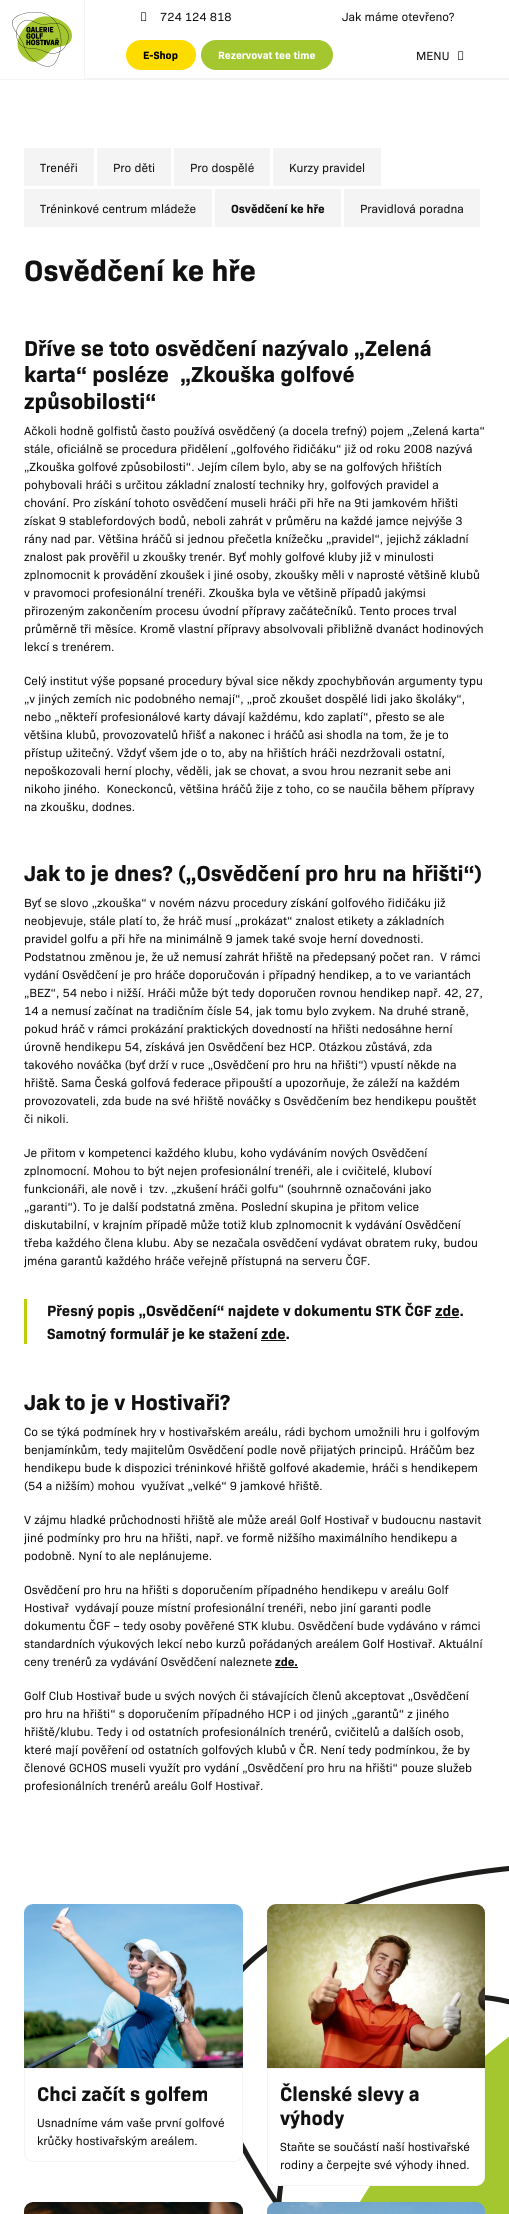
import math
import cairo


def round_path(ctx, x, y, w, h, r):
	ctx.new_sub_path()
	for i, (u, v) in enumerate([(x + w - r, y + h - r), (x + r, y + h - r), (x + r, y + r), (x + w - r, y + r)]):
		ctx.arc(u, v, r, i * math.pi / 2, (i + 1) * math.pi / 2)
	ctx.close_path()

def paste(ctx, path, x, y, w, h):
	ctx.save()
	ctx.set_source_surface(cairo.ImageSurface.create_from_png(path), x, y)
	ctx.rectangle(x, y, w, h)
	ctx.fill()
	ctx.restore()

def draw(ctx):
	ctx.set_source_rgb(1, 1, 1)
	ctx.paint()
	ctx.set_source_rgb(0.957, 0.957, 0.957)
	ctx.rectangle(0, 79, 509, 1)
	ctx.fill()
	ctx.rectangle(84, 0, 1, 79)
	ctx.fill()
	paste(ctx, 'media/1.png', 12, 12, 60, 55)
	ctx.rectangle(85, 78, 424, 1)
	ctx.fill()
	paste(ctx, 'media/2.png', 141, 12, 6, 9)
	ctx.select_font_face('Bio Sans')
	ctx.set_font_size(12)
	ctx.set_source_rgb(0.067, 0.067, 0.067)
	ctx.move_to(160, 21)
	ctx.show_text('724 124 818')
	ctx.move_to(342, 21)
	ctx.show_text('Jak máme otevřeno?')
	ctx.set_source_rgb(1, 0.863, 0)
	round_path(ctx, 126, 40, 70, 30, 15)
	ctx.fill()
	ctx.select_font_face('Bio Sans', cairo.FONT_SLANT_NORMAL, cairo.FONT_WEIGHT_BOLD)
	ctx.set_font_size(10.75)
	ctx.set_source_rgb(0, 0, 0)
	ctx.move_to(143, 59)
	ctx.show_text('E-Shop')
	ctx.set_source_rgb(0.643, 0.776, 0.18)
	round_path(ctx, 201, 40, 132, 30, 15)
	ctx.fill()
	ctx.set_source_rgb(1, 1, 1)
	ctx.move_to(218, 59)
	ctx.show_text('Rezervovat tee time')
	ctx.select_font_face('Bio Sans')
	ctx.set_font_size(12)
	ctx.set_source_rgb(0.067, 0.067, 0.067)
	ctx.move_to(416, 60)
	ctx.show_text('MENU')
	paste(ctx, 'media/2.png', 458, 51, 6, 9)
	ctx.set_source_rgb(0.957, 0.957, 0.957)
	ctx.rectangle(24, 148, 70, 38)
	ctx.fill()
	ctx.set_source_rgb(0.067, 0.067, 0.067)
	ctx.move_to(40, 172)
	ctx.show_text('Trenéři')
	ctx.set_source_rgb(0.957, 0.957, 0.957)
	ctx.rectangle(97, 148, 74, 38)
	ctx.fill()
	ctx.set_source_rgb(0.067, 0.067, 0.067)
	ctx.move_to(113, 172)
	ctx.show_text('Pro děti')
	ctx.set_source_rgb(0.957, 0.957, 0.957)
	ctx.rectangle(174, 148, 96, 38)
	ctx.fill()
	ctx.set_source_rgb(0.067, 0.067, 0.067)
	ctx.move_to(190, 172)
	ctx.show_text('Pro dospělé')
	ctx.set_source_rgb(0.957, 0.957, 0.957)
	ctx.rectangle(273, 148, 108, 38)
	ctx.fill()
	ctx.set_source_rgb(0.067, 0.067, 0.067)
	ctx.move_to(289, 172)
	ctx.show_text('Kurzy pravidel')
	ctx.set_source_rgb(0.957, 0.957, 0.957)
	ctx.rectangle(24, 189, 188, 38)
	ctx.fill()
	ctx.set_source_rgb(0.067, 0.067, 0.067)
	ctx.move_to(40, 213)
	ctx.show_text('Tréninkové centrum mládeže')
	ctx.set_source_rgb(0.957, 0.957, 0.957)
	ctx.rectangle(215, 189, 126, 38)
	ctx.fill()
	ctx.select_font_face('Bio Sans', cairo.FONT_SLANT_NORMAL, cairo.FONT_WEIGHT_BOLD)
	ctx.set_source_rgb(0.067, 0.067, 0.067)
	ctx.move_to(231, 213)
	ctx.show_text('Osvědčení ke hře')
	ctx.set_source_rgb(0.957, 0.957, 0.957)
	ctx.rectangle(344, 189, 136, 38)
	ctx.fill()
	ctx.select_font_face('Bio Sans')
	ctx.set_source_rgb(0.067, 0.067, 0.067)
	ctx.move_to(360, 213)
	ctx.show_text('Pravidlová poradna')
	ctx.select_font_face('Bio Sans', cairo.FONT_SLANT_NORMAL, cairo.FONT_WEIGHT_BOLD)
	ctx.set_font_size(29.75)
	ctx.move_to(24, 281)
	ctx.show_text('Osvědčení ke hře')
	ctx.set_font_size(21.9)
	for x, y, s in [
		(24, 356, 'Dříve se toto osvědčení nazývalo „Zelená'),
		(24, 382, 'karta“ posléze'),
		(180, 382, '„Zkouška golfové'),
		(24, 409, 'způsobilosti“'),
	]:
		ctx.move_to(x, y)
		ctx.show_text(s)
	ctx.select_font_face('Bio Sans')
	ctx.set_font_size(12)
	for x, y, s in [
		(24, 435, 'Ačkoli hodně golfistů často používá osvědčený (a docela trefný) pojem „Zelená karta“'),
		(24, 453, 'stále, oficiálně se procedura přidělení „golfového řidičáku“ již od roku 2008 nazývá'),
		(24, 471, '„Zkouška golfové způsobilosti“. Jejím cílem bylo, aby se na golfových hřištích'),
		(24, 489, 'pohybovali hráči s určitou základní znalostí techniky hry, golfových pravidel a'),
		(24, 507, 'chování. Pro získání tohoto osvědčení museli hráči při hře na 9ti jamkovém hřišti'),
		(24, 525, 'získat 9 stablefordových bodů, neboli zahrát v průměru na každé jamce nejvýše 3'),
		(24, 543, 'rány nad par. Většina hráčů si jednou přečetla knížečku „pravidel“, jejichž základní'),
		(24, 561, 'znalost pak prověřil u zkoušky trenér. Byť mohly golfové kluby již v minulosti'),
		(24, 579, 'zplnomocnit k provádění zkoušek i jiné osoby, zkoušky měli v naprosté většině klubů'),
		(24, 597, 'v pravomoci profesionální trenéři. Zkouška byla ve většině případů jakýmsi'),
		(24, 615, 'přirozeným zakončením procesu úvodní přípravy začátečníků. Tento proces trval'),
		(24, 633, 'průměrně tři měsíce. Kromě vlastní přípravy absolvovali přibližně dvanáct hodinových'),
		(24, 651, 'lekcí s trenérem.'),
		(24, 685, 'Celý institut výše popsané procedury býval sice někdy zpochybňován argumenty typu'),
		(24, 703, '„v jiných zemích nic podobného nemají“, „proč zkoušet dospělé lidi jako školáky“,'),
		(24, 721, 'nebo „někteří profesionálové karty dávají každému, kdo zaplatí“, přesto se ale'),
		(24, 739, 'většina klubů, provozovatelů hřišť a nakonec i hráčů asi shodla na tom, že je to'),
		(24, 757, 'přístup užitečný. Vždyť všem jde o to, aby na hřištích hráči nezdržovali ostatní,'),
		(24, 775, 'nepoškozovali herní plochy, věděli, jak se chovat, a svou hrou nezranit sebe ani'),
		(24, 793, 'nikoho jiného.  Koneckonců, většina hráčů žije z toho, co se naučila během přípravy'),
		(24, 811, 'na zkoušku, dodnes.'),
	]:
		ctx.move_to(x, y)
		ctx.show_text(s)
	ctx.select_font_face('Bio Sans', cairo.FONT_SLANT_NORMAL, cairo.FONT_WEIGHT_BOLD)
	ctx.set_font_size(21.9)
	ctx.move_to(24, 881)
	ctx.show_text('Jak to je dnes? („Osvědčení pro hru na hřišti“)')
	ctx.select_font_face('Bio Sans')
	ctx.set_font_size(12)
	for x, y, s in [
		(24, 907, 'Byť se slovo „zkouška“ v novém názvu procedury získání golfového řidičáku již'),
		(24, 925, 'neobjevuje, stále platí to, že hráč musí „prokázat“ znalost etikety a základních'),
		(24, 943, 'pravidel golfu a při hře na minimálně 9 jamek také svoje herní dovednosti.'),
		(24, 961, 'Podstatnou změnou je, že už nemusí zahrát hřiště na předepsaný počet ran.  V rámci'),
		(24, 979, 'vydání Osvědčení je pro hráče doporučován i případný hendikep, a to ve variantách'),
		(24, 997, '„BEZ“, 54 nebo i nižší. Hráči může být tedy doporučen rovnou hendikep např. 42, 27,'),
		(24, 1015, '14 a nemusí začínat na tradičním čísle 54, jak tomu bylo zvykem. Na druhé straně,'),
		(24, 1033, 'pokud hráč v rámci prokázání praktických dovedností na hřišti nedosáhne herní'),
		(24, 1051, 'úrovně hendikepu 54, získává jen Osvědčení bez HCP. Otázkou zůstává, zda'),
		(24, 1069, 'takového nováčka (byť drží v ruce „Osvědčení pro hru na hřišti“) vpustí někde na'),
		(24, 1087, 'hřiště. Sama Česká golfová federace připouští a upozorňuje, že záleží na každém'),
		(24, 1105, 'provozovateli, zda bude na své hřiště nováčky s Osvědčením bez hendikepu pouštět'),
		(24, 1123, 'či nikoli.'),
		(24, 1157, 'Je přitom v kompetenci každého klubu, koho vydáváním nových Osvědčení'),
		(24, 1175, 'zplnomocní. Mohou to být nejen profesionální trenéři, ale i cvičitelé, kluboví'),
		(24, 1193, 'funkcionáři, ale nově i  tzv. „zkušení hráči golfu“ (souhrnně označováni jako'),
		(24, 1211, '„garanti“). To je další podstatná změna. Poslední skupina je přitom velice'),
		(24, 1229, 'diskutabilní, v krajním případě může totiž klub zplnomocnit k vydávání Osvědčení'),
		(24, 1247, 'třeba každého člena klubu. Aby se nezačala osvědčení vydávat obratem ruky, budou'),
		(24, 1265, 'jména garantů každého hráče veřejně přístupná na serveru ČGF.'),
	]:
		ctx.move_to(x, y)
		ctx.show_text(s)
	ctx.set_source_rgb(0.741, 0.816, 0.027)
	ctx.rectangle(24, 1299, 3, 45)
	ctx.fill()
	ctx.select_font_face('Bio Sans', cairo.FONT_SLANT_NORMAL, cairo.FONT_WEIGHT_BOLD)
	ctx.set_font_size(15)
	ctx.set_source_rgb(0.067, 0.067, 0.067)
	ctx.move_to(47, 1316)
	ctx.show_text('Přesný popis „Osvědčení“ najdete v dokumentu STK ČGF zde.')
	ctx.rectangle(435, 1317, 24, 1)
	ctx.fill()
	ctx.move_to(47, 1339)
	ctx.show_text('Samotný formulář je ke stažení zde.')
	ctx.rectangle(261, 1340, 25, 1)
	ctx.fill()
	ctx.set_font_size(21.9)
	ctx.move_to(24, 1410)
	ctx.show_text('Jak to je v Hostivaři?')
	ctx.select_font_face('Bio Sans')
	ctx.set_font_size(12)
	for x, y, s in [
		(24, 1436, 'Co se týká podmínek hry v hostivařském areálu, rádi bychom umožnili hru i golfovým'),
		(24, 1454, 'benjamínkům, tedy majitelům Osvědčení podle nově přijatých principů. Hráčům bez'),
		(24, 1472, 'hendikepu bude k dispozici tréninkové hřiště golfové akademie, hráči s hendikepem'),
		(24, 1490, '(54 a nižším) mohou  využívat „velké“ 9 jamkové hřiště.'),
		(24, 1524, 'V zájmu hladké průchodnosti hřiště ale může areál Golf Hostivař v budoucnu nastavit'),
		(24, 1542, 'jiné podmínky pro hru na hřišti, např. ve formě nižšího maximálního hendikepu a'),
		(24, 1560, 'podobně. Nyní to ale neplánujeme.'),
		(24, 1594, 'Osvědčení pro hru na hřišti s doporučením případného hendikepu v areálu Golf'),
		(24, 1612, 'Hostivař  vydávají pouze místní profesionální trenéři, nebo jiní garanti podle'),
		(24, 1630, 'dokumentu ČGF – tedy osoby pověřené STK klubu. Osvědčení bude vydáváno v rámci'),
		(24, 1648, 'standardních výukových lekcí nebo kurzů pořádaných areálem Golf Hostivař. Aktuální'),
		(24, 1666, 'ceny trenérů za vydávání Osvědčení naleznete'),
	]:
		ctx.move_to(x, y)
		ctx.show_text(s)
	ctx.select_font_face('Bio Sans', cairo.FONT_SLANT_NORMAL, cairo.FONT_WEIGHT_BOLD)
	ctx.move_to(275, 1666)
	ctx.show_text('zde.')
	ctx.rectangle(275, 1667, 23, 1)
	ctx.fill()
	ctx.select_font_face('Bio Sans')
	for x, y, s in [
		(24, 1700, 'Golf Club Hostivař bude u svých nových či stávajících členů akceptovat „Osvědčení'),
		(24, 1718, 'pro hru na hřišti“ s doporučením případného HCP i od jiných „garantů“ z jiného'),
		(24, 1736, 'hřiště/klubu. Tedy i od ostatních profesionálních trenérů, cvičitelů a dalších osob,'),
		(24, 1754, 'které mají pověření od ostatních golfových klubů v ČR. Není tedy podmínkou, že by'),
		(24, 1772, 'členové GCHOS museli využít pro vydání „Osvědčení pro hru na hřišti“ pouze služeb'),
		(24, 1790, 'profesionálních trenérů areálu Golf Hostivař.'),
	]:
		ctx.move_to(x, y)
		ctx.show_text(s)
	paste(ctx, 'media/3.png', 243, 1866, 266, 348)
	paste(ctx, 'media/4.png', 24, 1904, 219, 164)
	ctx.new_path()
	ctx.move_to(24.5, 2068.5)
	ctx.line_to(242.5, 2068.5)
	ctx.line_to(242.5, 2153)
	ctx.curve_to(242.5, 2157.5, 238.5, 2161.5, 234, 2161.5)
	ctx.line_to(33, 2161.5)
	ctx.curve_to(28.5, 2161.5, 24.5, 2157.5, 24.5, 2153)
	ctx.close_path()
	ctx.set_source_rgb(0.957, 0.957, 0.957)
	ctx.set_line_width(1)
	ctx.stroke()
	ctx.select_font_face('Bio Sans', cairo.FONT_SLANT_NORMAL, cairo.FONT_WEIGHT_BOLD)
	ctx.set_font_size(20)
	ctx.set_source_rgb(0.067, 0.067, 0.067)
	ctx.move_to(37, 2101)
	ctx.show_text('Chci začít s golfem')
	ctx.select_font_face('Bio Sans')
	ctx.set_font_size(12)
	ctx.move_to(37, 2127)
	ctx.show_text('Usnadníme vám vaše první golfové')
	ctx.move_to(37, 2145)
	ctx.show_text('krůčky hostivařským areálem.')
	paste(ctx, 'media/5.png', 267, 1904, 218, 164)
	ctx.set_source_rgb(1, 1, 1)
	ctx.new_path()
	ctx.move_to(267.5, 2068.5)
	ctx.line_to(484.5, 2068.5)
	ctx.line_to(484.5, 2177)
	ctx.curve_to(484.5, 2181.5, 480.5, 2185.5, 476, 2185.5)
	ctx.line_to(276, 2185.5)
	ctx.curve_to(271.5, 2185.5, 267.5, 2181.5, 267.5, 2177)
	ctx.close_path()
	ctx.fill_preserve()
	ctx.set_source_rgb(0.957, 0.957, 0.957)
	ctx.stroke()
	ctx.select_font_face('Bio Sans', cairo.FONT_SLANT_NORMAL, cairo.FONT_WEIGHT_BOLD)
	ctx.set_font_size(20)
	ctx.set_source_rgb(0.067, 0.067, 0.067)
	ctx.move_to(280, 2101)
	ctx.show_text('Členské slevy a')
	ctx.move_to(280, 2125)
	ctx.show_text('výhody')
	ctx.select_font_face('Bio Sans')
	ctx.set_font_size(12)
	ctx.move_to(280, 2151)
	ctx.show_text('Staňte se součástí naší hostivařské')
	ctx.move_to(280, 2169)
	ctx.show_text('rodiny a čerpejte své výhody ihned.')
	paste(ctx, 'media/6.png', 24, 2202, 219, 12)
	paste(ctx, 'media/7.png', 267, 2202, 218, 12)


surface = cairo.ImageSurface(cairo.FORMAT_RGB24, 509, 2214)
ctx = cairo.Context(surface)
options = cairo.FontOptions()
options.set_hint_metrics(cairo.HINT_METRICS_OFF)
options.set_hint_style(cairo.HINT_STYLE_NONE)
ctx.set_font_options(options)
ctx.set_miter_limit(4)
draw(ctx)
surface.write_to_png('image.png')
